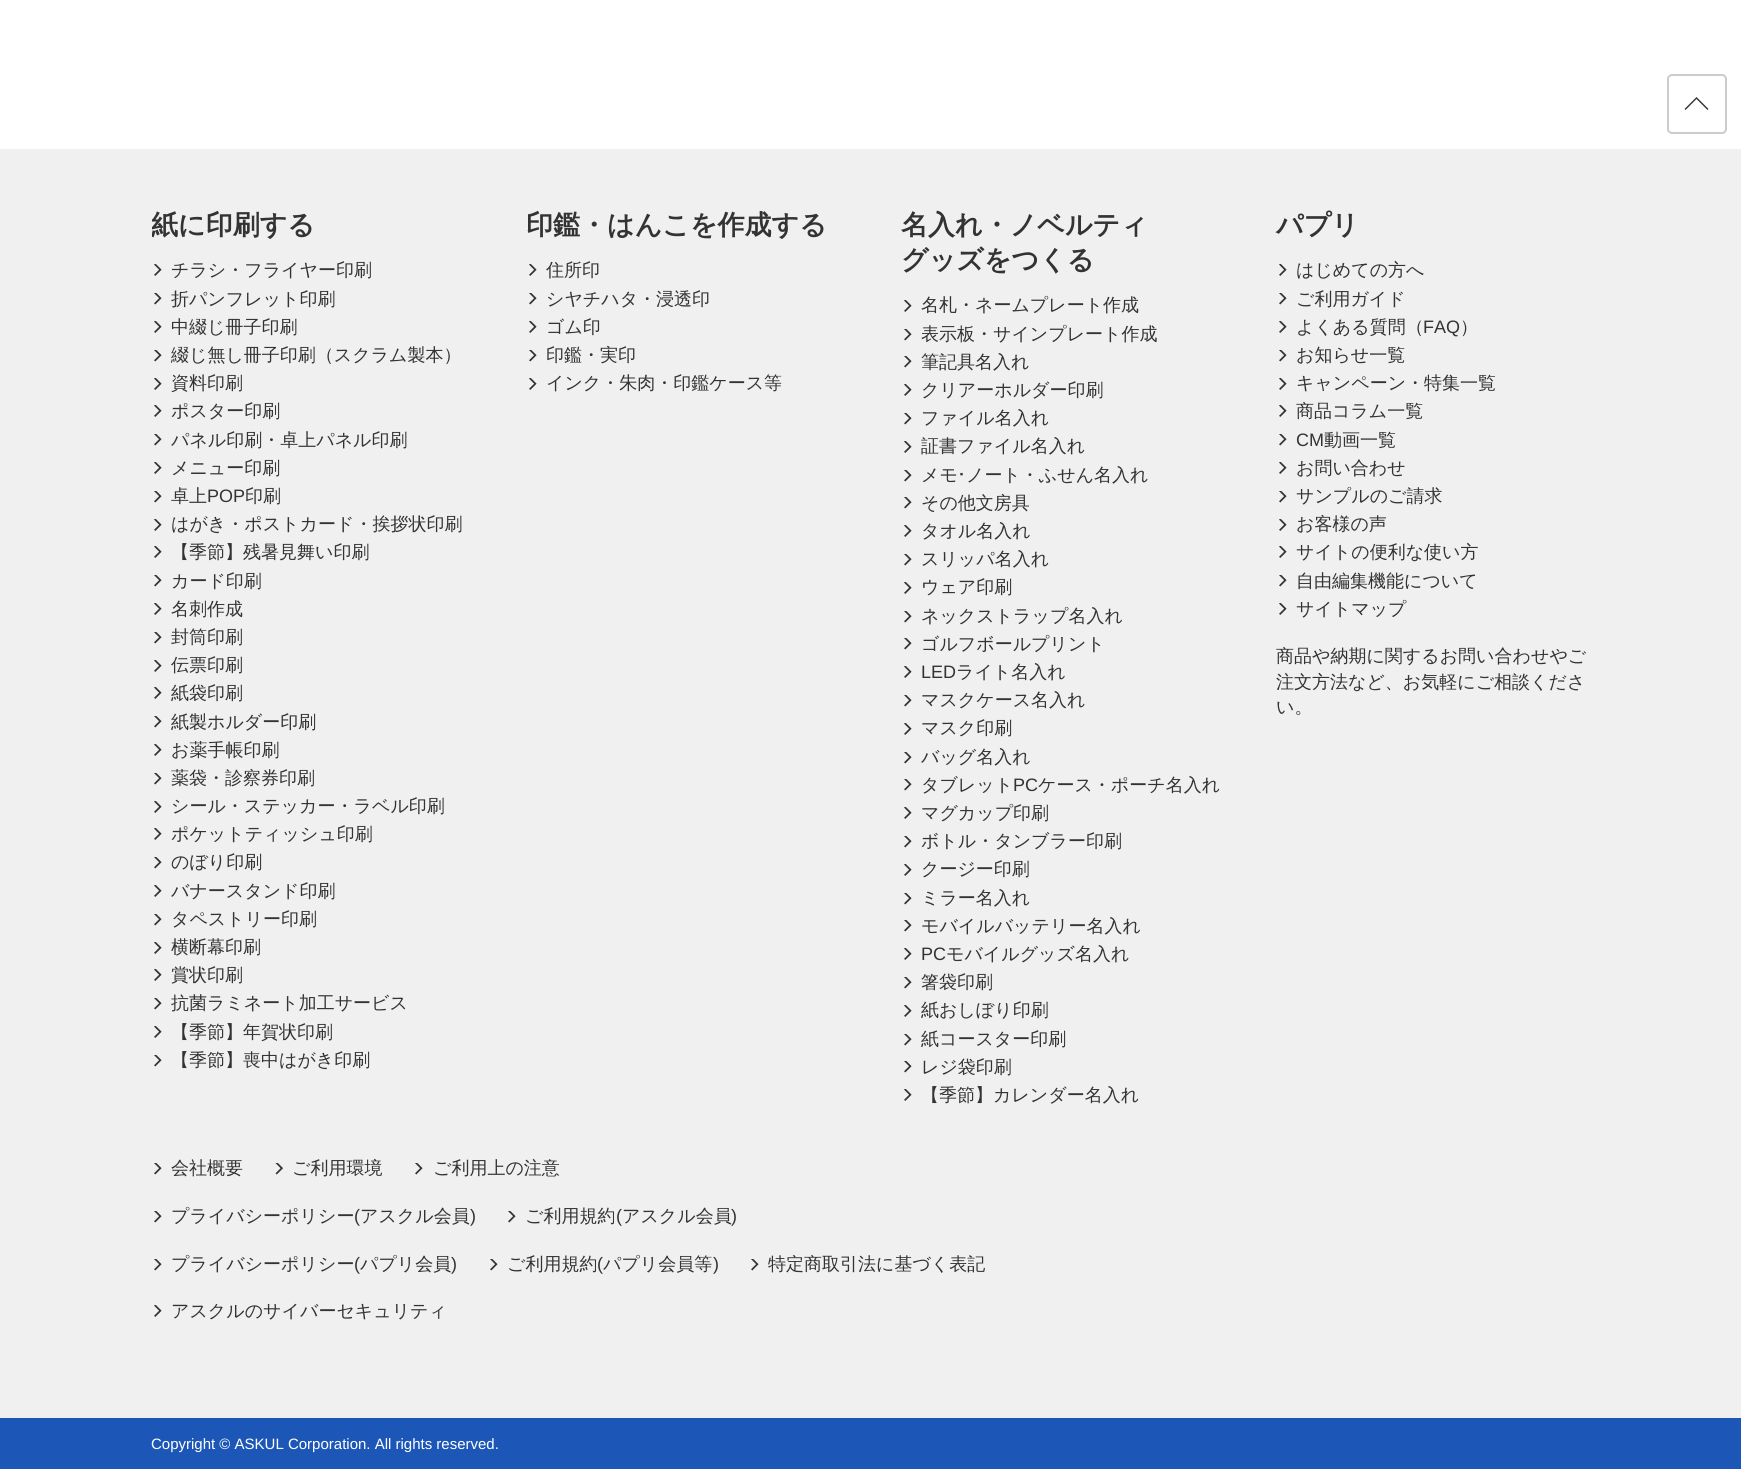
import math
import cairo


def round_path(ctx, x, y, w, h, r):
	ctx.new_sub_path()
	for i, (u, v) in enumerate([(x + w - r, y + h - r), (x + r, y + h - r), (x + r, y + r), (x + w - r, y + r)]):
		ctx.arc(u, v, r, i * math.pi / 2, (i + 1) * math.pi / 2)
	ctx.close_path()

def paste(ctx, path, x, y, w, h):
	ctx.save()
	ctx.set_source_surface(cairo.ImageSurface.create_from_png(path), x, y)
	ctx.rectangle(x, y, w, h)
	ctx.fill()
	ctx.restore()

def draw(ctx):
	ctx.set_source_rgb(1, 1, 1)
	ctx.paint()
	ctx.set_source_rgb(0.941, 0.941, 0.941)
	ctx.rectangle(0, 149, 1741, 1269)
	ctx.fill()
	round_path(ctx, 1668, 75, 58, 58, 4)
	ctx.set_source_rgb(0.8, 0.8, 0.8)
	ctx.stroke()
	ctx.set_source_rgb(0.2, 0.2, 0.2)
	ctx.new_path()
	ctx.move_to(1708.5, 109)
	ctx.line_to(1707.5, 110)
	ctx.line_to(1696.5, 99)
	ctx.line_to(1685.5, 110)
	ctx.line_to(1684.5, 109)
	ctx.line_to(1696.5, 97)
	ctx.close_path()
	ctx.fill()
	ctx.save()
	ctx.rectangle(152, 209, 1440, 903)
	ctx.clip()
	ctx.select_font_face('WenQuanYi Zen Hei', cairo.FONT_SLANT_NORMAL, cairo.FONT_WEIGHT_BOLD)
	ctx.set_font_size(27)
	ctx.move_to(151, 234)
	ctx.show_text('紙に印刷する')
	ctx.restore()
	paste(ctx, 'media/1.png', 154, 264, 8, 12)
	ctx.select_font_face('WenQuanYi Zen Hei Medium')
	ctx.set_font_size(18)
	ctx.move_to(171, 276)
	ctx.show_text('チラシ・フライヤー印刷')
	paste(ctx, 'media/2.png', 154, 293, 8, 12)
	ctx.move_to(171, 305)
	ctx.show_text('折パンフレット印刷')
	paste(ctx, 'media/1.png', 154, 321, 8, 12)
	ctx.move_to(171, 333)
	ctx.show_text('中綴じ冊子印刷')
	paste(ctx, 'media/2.png', 154, 350, 8, 12)
	ctx.move_to(171, 361)
	ctx.show_text('綴じ無し冊子印刷（スクラム製本）')
	paste(ctx, 'media/1.png', 154, 378, 8, 12)
	ctx.move_to(171, 389)
	ctx.show_text('資料印刷')
	paste(ctx, 'media/1.png', 154, 405, 8, 12)
	ctx.move_to(171, 417)
	ctx.show_text('ポスター印刷')
	paste(ctx, 'media/2.png', 154, 434, 8, 12)
	ctx.move_to(171, 446)
	ctx.show_text('パネル印刷・卓上パネル印刷')
	paste(ctx, 'media/1.png', 154, 462, 8, 12)
	ctx.move_to(171, 474)
	ctx.show_text('メニュー印刷')
	paste(ctx, 'media/2.png', 154, 491, 8, 12)
	ctx.move_to(171, 502)
	ctx.show_text('卓上')
	ctx.select_font_face('Liberation Sans')
	ctx.move_to(207, 502)
	ctx.show_text('POP')
	ctx.select_font_face('WenQuanYi Zen Hei Medium')
	ctx.move_to(245, 502)
	ctx.show_text('印刷')
	paste(ctx, 'media/1.png', 154, 519, 8, 12)
	ctx.move_to(171, 530)
	ctx.show_text('はがき・ポストカード・挨拶状印刷')
	paste(ctx, 'media/1.png', 154, 546, 8, 12)
	ctx.move_to(171, 558)
	ctx.show_text('【季節】残暑見舞い印刷')
	paste(ctx, 'media/2.png', 154, 575, 8, 12)
	ctx.move_to(171, 587)
	ctx.show_text('カード印刷')
	paste(ctx, 'media/1.png', 154, 603, 8, 12)
	ctx.move_to(171, 615)
	ctx.show_text('名刺作成')
	paste(ctx, 'media/2.png', 154, 632, 8, 12)
	ctx.move_to(171, 643)
	ctx.show_text('封筒印刷')
	paste(ctx, 'media/1.png', 154, 660, 8, 12)
	ctx.move_to(171, 671)
	ctx.show_text('伝票印刷')
	paste(ctx, 'media/1.png', 154, 687, 8, 12)
	ctx.move_to(171, 699)
	ctx.show_text('紙袋印刷')
	paste(ctx, 'media/2.png', 154, 716, 8, 12)
	ctx.move_to(171, 728)
	ctx.show_text('紙製ホルダー印刷')
	paste(ctx, 'media/1.png', 154, 744, 8, 12)
	ctx.move_to(171, 756)
	ctx.show_text('お薬手帳印刷')
	paste(ctx, 'media/2.png', 154, 773, 8, 12)
	ctx.move_to(171, 784)
	ctx.show_text('薬袋・診察券印刷')
	paste(ctx, 'media/1.png', 154, 801, 8, 12)
	ctx.move_to(171, 812)
	ctx.show_text('シール・ステッカー・ラベル印刷')
	paste(ctx, 'media/1.png', 154, 828, 8, 12)
	ctx.move_to(171, 840)
	ctx.show_text('ポケットティッシュ印刷')
	paste(ctx, 'media/2.png', 154, 857, 8, 12)
	ctx.move_to(171, 868)
	ctx.show_text('のぼり印刷')
	paste(ctx, 'media/1.png', 154, 885, 8, 12)
	ctx.move_to(171, 897)
	ctx.show_text('バナースタンド印刷')
	paste(ctx, 'media/2.png', 154, 914, 8, 12)
	ctx.move_to(171, 925)
	ctx.show_text('タペストリー印刷')
	paste(ctx, 'media/1.png', 154, 942, 8, 12)
	ctx.move_to(171, 953)
	ctx.show_text('横断幕印刷')
	paste(ctx, 'media/1.png', 154, 969, 8, 12)
	ctx.move_to(171, 981)
	ctx.show_text('賞状印刷')
	paste(ctx, 'media/2.png', 154, 998, 8, 12)
	ctx.move_to(171, 1009)
	ctx.show_text('抗菌ラミネート加工サービス')
	paste(ctx, 'media/1.png', 154, 1026, 8, 12)
	ctx.move_to(171, 1038)
	ctx.show_text('【季節】年賀状印刷')
	paste(ctx, 'media/2.png', 154, 1055, 8, 12)
	ctx.move_to(171, 1066)
	ctx.show_text('【季節】喪中はがき印刷')
	ctx.select_font_face('WenQuanYi Zen Hei', cairo.FONT_SLANT_NORMAL, cairo.FONT_WEIGHT_BOLD)
	ctx.set_font_size(27)
	ctx.move_to(526, 234)
	ctx.show_text('印鑑・はんこを作成する')
	paste(ctx, 'media/1.png', 529, 264, 8, 12)
	ctx.select_font_face('WenQuanYi Zen Hei Medium')
	ctx.set_font_size(18)
	ctx.move_to(546, 276)
	ctx.show_text('住所印')
	paste(ctx, 'media/2.png', 529, 293, 8, 12)
	ctx.move_to(546, 305)
	ctx.show_text('シヤチハタ・浸透印')
	paste(ctx, 'media/1.png', 529, 321, 8, 12)
	ctx.move_to(546, 333)
	ctx.show_text('ゴム印')
	paste(ctx, 'media/2.png', 529, 350, 8, 12)
	ctx.move_to(546, 361)
	ctx.show_text('印鑑・実印')
	paste(ctx, 'media/1.png', 529, 378, 8, 12)
	ctx.move_to(546, 389)
	ctx.show_text('インク・朱肉・印鑑ケース等')
	ctx.select_font_face('WenQuanYi Zen Hei', cairo.FONT_SLANT_NORMAL, cairo.FONT_WEIGHT_BOLD)
	ctx.set_font_size(27)
	ctx.move_to(901, 234)
	ctx.show_text('名入れ・ノベルティ')
	ctx.move_to(901, 269)
	ctx.show_text('グッズをつくる')
	paste(ctx, 'media/1.png', 904, 300, 8, 12)
	ctx.select_font_face('WenQuanYi Zen Hei Medium')
	ctx.set_font_size(18)
	ctx.move_to(921, 311)
	ctx.show_text('名札・ネームプレート作成')
	paste(ctx, 'media/2.png', 904, 329, 8, 12)
	ctx.move_to(921, 340)
	ctx.show_text('表示板・サインプレート作成')
	paste(ctx, 'media/2.png', 904, 356, 8, 12)
	ctx.move_to(921, 368)
	ctx.show_text('筆記具名入れ')
	paste(ctx, 'media/1.png', 904, 384, 8, 12)
	ctx.move_to(921, 396)
	ctx.show_text('クリアーホルダー印刷')
	paste(ctx, 'media/2.png', 904, 413, 8, 12)
	ctx.move_to(921, 424)
	ctx.show_text('ファイル名入れ')
	paste(ctx, 'media/1.png', 904, 441, 8, 12)
	ctx.move_to(921, 452)
	ctx.show_text('証書ファイル名入れ')
	paste(ctx, 'media/2.png', 904, 470, 8, 12)
	ctx.move_to(921, 481)
	ctx.show_text('メモ')
	ctx.select_font_face('IPAPGothic')
	ctx.move_to(957, 481)
	ctx.show_text('･')
	ctx.select_font_face('WenQuanYi Zen Hei Medium')
	ctx.move_to(966, 481)
	ctx.show_text('ノート・ふせん名入れ')
	paste(ctx, 'media/2.png', 904, 497, 8, 12)
	ctx.move_to(921, 509)
	ctx.show_text('その他文房具')
	paste(ctx, 'media/1.png', 904, 525, 8, 12)
	ctx.move_to(921, 537)
	ctx.show_text('タオル名入れ')
	paste(ctx, 'media/2.png', 904, 554, 8, 12)
	ctx.move_to(921, 565)
	ctx.show_text('スリッパ名入れ')
	paste(ctx, 'media/1.png', 904, 582, 8, 12)
	ctx.move_to(921, 593)
	ctx.show_text('ウェア印刷')
	paste(ctx, 'media/2.png', 904, 611, 8, 12)
	ctx.move_to(921, 622)
	ctx.show_text('ネックストラップ名入れ')
	paste(ctx, 'media/2.png', 904, 638, 8, 12)
	ctx.move_to(921, 650)
	ctx.show_text('ゴルフボールプリント')
	paste(ctx, 'media/1.png', 904, 666, 8, 12)
	ctx.select_font_face('Liberation Sans')
	ctx.move_to(921, 678)
	ctx.show_text('LED')
	ctx.select_font_face('WenQuanYi Zen Hei Medium')
	ctx.move_to(956, 678)
	ctx.show_text('ライト名入れ')
	paste(ctx, 'media/2.png', 904, 695, 8, 12)
	ctx.move_to(921, 706)
	ctx.show_text('マスクケース名入れ')
	paste(ctx, 'media/1.png', 904, 723, 8, 12)
	ctx.move_to(921, 734)
	ctx.show_text('マスク印刷')
	paste(ctx, 'media/2.png', 904, 752, 8, 12)
	ctx.move_to(921, 763)
	ctx.show_text('バッグ名入れ')
	paste(ctx, 'media/2.png', 904, 779, 8, 12)
	ctx.move_to(921, 791)
	ctx.show_text('タブレット')
	ctx.select_font_face('Liberation Sans')
	ctx.move_to(1013, 791)
	ctx.show_text('PC')
	ctx.select_font_face('WenQuanYi Zen Hei Medium')
	ctx.move_to(1038, 791)
	ctx.show_text('ケース・ポーチ名入れ')
	paste(ctx, 'media/1.png', 904, 807, 8, 12)
	ctx.move_to(921, 819)
	ctx.show_text('マグカップ印刷')
	paste(ctx, 'media/2.png', 904, 836, 8, 12)
	ctx.move_to(921, 847)
	ctx.show_text('ボトル・タンブラー印刷')
	paste(ctx, 'media/1.png', 904, 864, 8, 12)
	ctx.move_to(921, 875)
	ctx.show_text('クージー印刷')
	paste(ctx, 'media/2.png', 904, 893, 8, 12)
	ctx.move_to(921, 904)
	ctx.show_text('ミラー名入れ')
	paste(ctx, 'media/2.png', 904, 920, 8, 12)
	ctx.move_to(921, 932)
	ctx.show_text('モバイルバッテリー名入れ')
	paste(ctx, 'media/1.png', 904, 948, 8, 12)
	ctx.select_font_face('Liberation Sans')
	ctx.move_to(921, 960)
	ctx.show_text('PC')
	ctx.select_font_face('WenQuanYi Zen Hei Medium')
	ctx.move_to(946, 960)
	ctx.show_text('モバイルグッズ名入れ')
	paste(ctx, 'media/2.png', 904, 977, 8, 12)
	ctx.move_to(921, 988)
	ctx.show_text('箸袋印刷')
	paste(ctx, 'media/1.png', 904, 1005, 8, 12)
	ctx.move_to(921, 1016)
	ctx.show_text('紙おしぼり印刷')
	paste(ctx, 'media/2.png', 904, 1034, 8, 12)
	ctx.move_to(921, 1045)
	ctx.show_text('紙コースター印刷')
	paste(ctx, 'media/2.png', 904, 1061, 8, 12)
	ctx.move_to(921, 1073)
	ctx.show_text('レジ袋印刷')
	paste(ctx, 'media/1.png', 904, 1089, 8, 12)
	ctx.move_to(921, 1101)
	ctx.show_text('【季節】カレンダー名入れ')
	ctx.select_font_face('WenQuanYi Zen Hei', cairo.FONT_SLANT_NORMAL, cairo.FONT_WEIGHT_BOLD)
	ctx.set_font_size(27)
	ctx.move_to(1276, 234)
	ctx.show_text('パプリ')
	paste(ctx, 'media/1.png', 1279, 264, 8, 12)
	ctx.select_font_face('WenQuanYi Zen Hei Medium')
	ctx.set_font_size(18)
	ctx.move_to(1296, 276)
	ctx.show_text('はじめての方へ')
	paste(ctx, 'media/2.png', 1279, 293, 8, 12)
	ctx.move_to(1296, 305)
	ctx.show_text('ご利用ガイド')
	paste(ctx, 'media/1.png', 1279, 321, 8, 12)
	ctx.move_to(1296, 333)
	ctx.show_text('よくある質問（')
	ctx.select_font_face('Liberation Sans')
	ctx.move_to(1423, 333)
	ctx.show_text('FAQ')
	ctx.select_font_face('WenQuanYi Zen Hei Medium')
	ctx.move_to(1460, 333)
	ctx.show_text('）')
	paste(ctx, 'media/2.png', 1279, 350, 8, 12)
	ctx.move_to(1296, 361)
	ctx.show_text('お知らせ一覧')
	paste(ctx, 'media/1.png', 1279, 378, 8, 12)
	ctx.move_to(1296, 389)
	ctx.show_text('キャンペーン・特集一覧')
	paste(ctx, 'media/1.png', 1279, 405, 8, 12)
	ctx.move_to(1296, 417)
	ctx.show_text('商品コラム一覧')
	paste(ctx, 'media/2.png', 1279, 434, 8, 12)
	ctx.select_font_face('Liberation Sans')
	ctx.move_to(1296, 446)
	ctx.show_text('CM')
	ctx.select_font_face('WenQuanYi Zen Hei Medium')
	ctx.move_to(1324, 446)
	ctx.show_text('動画一覧')
	paste(ctx, 'media/1.png', 1279, 462, 8, 12)
	ctx.move_to(1296, 474)
	ctx.show_text('お問い合わせ')
	paste(ctx, 'media/2.png', 1279, 491, 8, 12)
	ctx.move_to(1296, 502)
	ctx.show_text('サンプルのご請求')
	paste(ctx, 'media/1.png', 1279, 519, 8, 12)
	ctx.move_to(1296, 530)
	ctx.show_text('お客様の声')
	paste(ctx, 'media/1.png', 1279, 546, 8, 12)
	ctx.move_to(1296, 558)
	ctx.show_text('サイトの便利な使い方')
	paste(ctx, 'media/2.png', 1279, 575, 8, 12)
	ctx.move_to(1296, 587)
	ctx.show_text('自由編集機能について')
	paste(ctx, 'media/1.png', 1279, 603, 8, 12)
	for x, y, s in [
		(1296, 615, 'サイトマップ'),
		(1276, 662, '商品や納期に関するお問い合わせやご'),
		(1276, 688, '注文方法など、お気軽にご相談くださ'),
		(1276, 713, 'い。'),
	]:
		ctx.move_to(x, y)
		ctx.show_text(s)
	paste(ctx, 'media/2.png', 154, 1163, 8, 12)
	ctx.move_to(171, 1174)
	ctx.show_text('会社概要')
	paste(ctx, 'media/3.png', 275, 1163, 8, 12)
	ctx.move_to(292, 1174)
	ctx.show_text('ご利用環境')
	paste(ctx, 'media/2.png', 415, 1163, 8, 12)
	ctx.move_to(433, 1174)
	ctx.show_text('ご利用上の注意')
	paste(ctx, 'media/2.png', 154, 1211, 8, 12)
	ctx.move_to(171, 1222)
	ctx.show_text('プライバシーポリシー')
	ctx.select_font_face('Liberation Sans')
	ctx.move_to(354, 1222)
	ctx.show_text('(')
	ctx.select_font_face('WenQuanYi Zen Hei Medium')
	ctx.move_to(360, 1222)
	ctx.show_text('アスクル会員')
	ctx.select_font_face('Liberation Sans')
	ctx.move_to(470, 1222)
	ctx.show_text(')')
	paste(ctx, 'media/2.png', 508, 1211, 8, 12)
	ctx.select_font_face('WenQuanYi Zen Hei Medium')
	ctx.move_to(525, 1222)
	ctx.show_text('ご利用規約')
	ctx.select_font_face('Liberation Sans')
	ctx.move_to(616, 1222)
	ctx.show_text('(')
	ctx.select_font_face('WenQuanYi Zen Hei Medium')
	ctx.move_to(622, 1222)
	ctx.show_text('アスクル会員')
	ctx.select_font_face('Liberation Sans')
	ctx.move_to(731, 1222)
	ctx.show_text(')')
	paste(ctx, 'media/2.png', 154, 1259, 8, 12)
	ctx.select_font_face('WenQuanYi Zen Hei Medium')
	ctx.move_to(171, 1270)
	ctx.show_text('プライバシーポリシー')
	ctx.select_font_face('Liberation Sans')
	ctx.move_to(354, 1270)
	ctx.show_text('(')
	ctx.select_font_face('WenQuanYi Zen Hei Medium')
	ctx.move_to(360, 1270)
	ctx.show_text('パプリ会員')
	ctx.select_font_face('Liberation Sans')
	ctx.move_to(451, 1270)
	ctx.show_text(')')
	paste(ctx, 'media/2.png', 490, 1259, 8, 12)
	ctx.select_font_face('WenQuanYi Zen Hei Medium')
	ctx.move_to(507, 1270)
	ctx.show_text('ご利用規約')
	ctx.select_font_face('Liberation Sans')
	ctx.move_to(597, 1270)
	ctx.show_text('(')
	ctx.select_font_face('WenQuanYi Zen Hei Medium')
	ctx.move_to(603, 1270)
	ctx.show_text('パプリ会員等')
	ctx.select_font_face('Liberation Sans')
	ctx.move_to(713, 1270)
	ctx.show_text(')')
	paste(ctx, 'media/2.png', 751, 1259, 8, 12)
	ctx.select_font_face('WenQuanYi Zen Hei Medium')
	ctx.move_to(768, 1270)
	ctx.show_text('特定商取引法に基づく表記')
	paste(ctx, 'media/1.png', 154, 1305, 8, 12)
	ctx.move_to(171, 1317)
	ctx.show_text('アスクルのサイバーセキュリティ')
	ctx.set_source_rgb(0.11, 0.341, 0.722)
	ctx.rectangle(0, 1418, 1741, 51)
	ctx.fill()
	ctx.select_font_face('Liberation Sans')
	ctx.set_font_size(15)
	ctx.set_source_rgb(1, 1, 1)
	ctx.move_to(151, 1449)
	ctx.show_text('Copyright © ASKUL Corporation. All rights reserved.')


surface = cairo.ImageSurface(cairo.FORMAT_RGB24, 1741, 1469)
ctx = cairo.Context(surface)
options = cairo.FontOptions()
options.set_hint_metrics(cairo.HINT_METRICS_OFF)
options.set_hint_style(cairo.HINT_STYLE_NONE)
ctx.set_font_options(options)
ctx.set_miter_limit(4)
draw(ctx)
surface.write_to_png('image.png')
